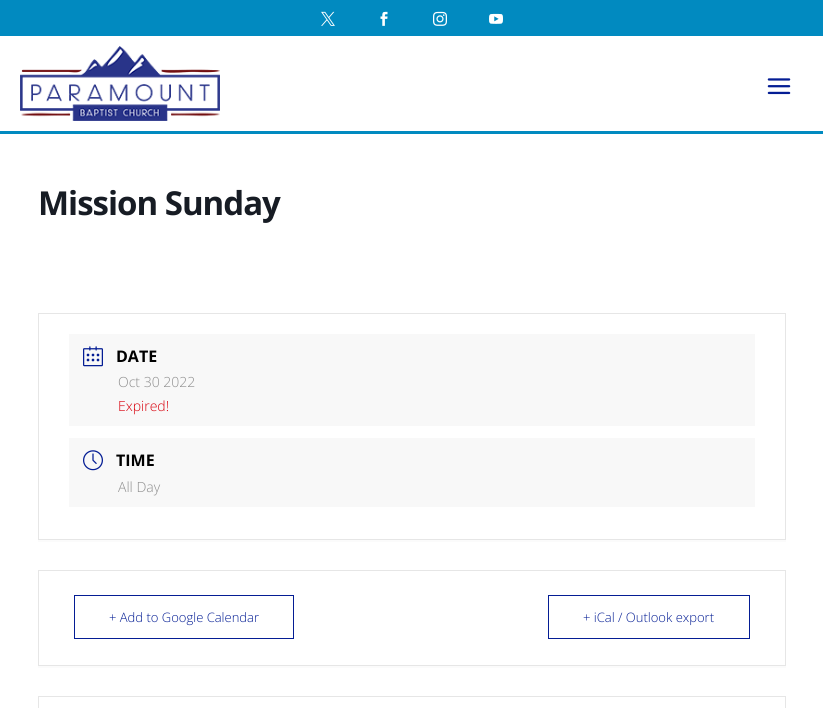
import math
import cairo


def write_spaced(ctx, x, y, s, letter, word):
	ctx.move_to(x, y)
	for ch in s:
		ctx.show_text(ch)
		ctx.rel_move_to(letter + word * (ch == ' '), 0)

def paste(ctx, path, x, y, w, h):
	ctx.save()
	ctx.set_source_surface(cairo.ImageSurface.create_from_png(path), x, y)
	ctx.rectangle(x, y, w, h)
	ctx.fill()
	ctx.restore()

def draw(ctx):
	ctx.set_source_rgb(1, 1, 1)
	ctx.paint()
	ctx.set_source_rgb(0.004, 0.541, 0.753)
	ctx.rectangle(0, 0, 823, 36)
	ctx.fill()
	paste(ctx, 'media/1.png', 321, 11, 14, 15)
	paste(ctx, 'media/2.png', 380, 11, 8, 15)
	paste(ctx, 'media/3.png', 433, 11, 14, 15)
	paste(ctx, 'media/4.png', 489, 13, 14, 11)
	ctx.rectangle(0, 131, 823, 3)
	ctx.fill()
	paste(ctx, 'media/5.png', 20, 46, 200, 75)
	paste(ctx, 'media/6.png', 767, 78, 24, 17)
	ctx.select_font_face('Open Sans', cairo.FONT_SLANT_NORMAL, cairo.FONT_WEIGHT_BOLD)
	ctx.set_font_size(33)
	ctx.set_source_rgb(0.09, 0.11, 0.141)
	write_spaced(ctx, 38, 215, 'Mission Sunday', -1, 0)
	ctx.set_source_rgb(0.984, 0.984, 0.984)
	ctx.rectangle(38, 540, 748, 2)
	ctx.fill()
	ctx.rectangle(38.5, 313.5, 747, 226)
	ctx.set_source_rgb(0.902, 0.902, 0.902)
	ctx.set_line_width(1)
	ctx.stroke()
	ctx.set_source_rgb(0.969, 0.969, 0.969)
	ctx.rectangle(69, 334, 686, 92)
	ctx.fill()
	paste(ctx, 'media/7.png', 83, 346, 20, 21)
	ctx.set_font_size(16)
	ctx.set_source_rgb(0, 0, 0)
	ctx.move_to(116, 362)
	ctx.show_text('DATE')
	ctx.select_font_face('Open Sans Light')
	ctx.set_font_size(14)
	ctx.set_source_rgb(0.553, 0.553, 0.553)
	ctx.move_to(118, 387)
	ctx.show_text('Oct 30 2022')
	ctx.set_source_rgb(0.847, 0, 0.047)
	ctx.move_to(118, 411)
	ctx.show_text('Expired!')
	ctx.set_source_rgb(0.969, 0.969, 0.969)
	ctx.rectangle(69, 438, 686, 69)
	ctx.fill()
	paste(ctx, 'media/8.png', 83, 450, 20, 21)
	ctx.select_font_face('Open Sans', cairo.FONT_SLANT_NORMAL, cairo.FONT_WEIGHT_BOLD)
	ctx.set_font_size(16)
	ctx.set_source_rgb(0, 0, 0)
	ctx.move_to(116, 466)
	ctx.show_text('TIME')
	ctx.select_font_face('Open Sans Light')
	ctx.set_font_size(14)
	ctx.set_source_rgb(0.553, 0.553, 0.553)
	ctx.move_to(118, 492)
	ctx.show_text('All Day')
	ctx.set_source_rgb(0.984, 0.984, 0.984)
	ctx.rectangle(38, 666, 748, 2)
	ctx.fill()
	ctx.rectangle(38.5, 570.5, 747, 95)
	ctx.set_source_rgb(0.902, 0.902, 0.902)
	ctx.stroke()
	ctx.rectangle(74.5, 595.5, 219, 43)
	ctx.set_source_rgb(0.016, 0.114, 0.58)
	ctx.stroke()
	ctx.set_font_size(13)
	ctx.move_to(109, 622)
	ctx.show_text('+ Add to Google Calendar')
	ctx.rectangle(548.5, 595.5, 201, 43)
	ctx.stroke()
	ctx.move_to(583, 622)
	ctx.show_text('+ iCal / Outlook export')
	ctx.rectangle(38.5, 696.5, 747, 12)
	ctx.set_source_rgb(0.902, 0.902, 0.902)
	ctx.stroke()


surface = cairo.ImageSurface(cairo.FORMAT_RGB24, 823, 708)
ctx = cairo.Context(surface)
options = cairo.FontOptions()
options.set_hint_metrics(cairo.HINT_METRICS_OFF)
options.set_hint_style(cairo.HINT_STYLE_NONE)
ctx.set_font_options(options)
ctx.set_miter_limit(4)
draw(ctx)
surface.write_to_png('image.png')
